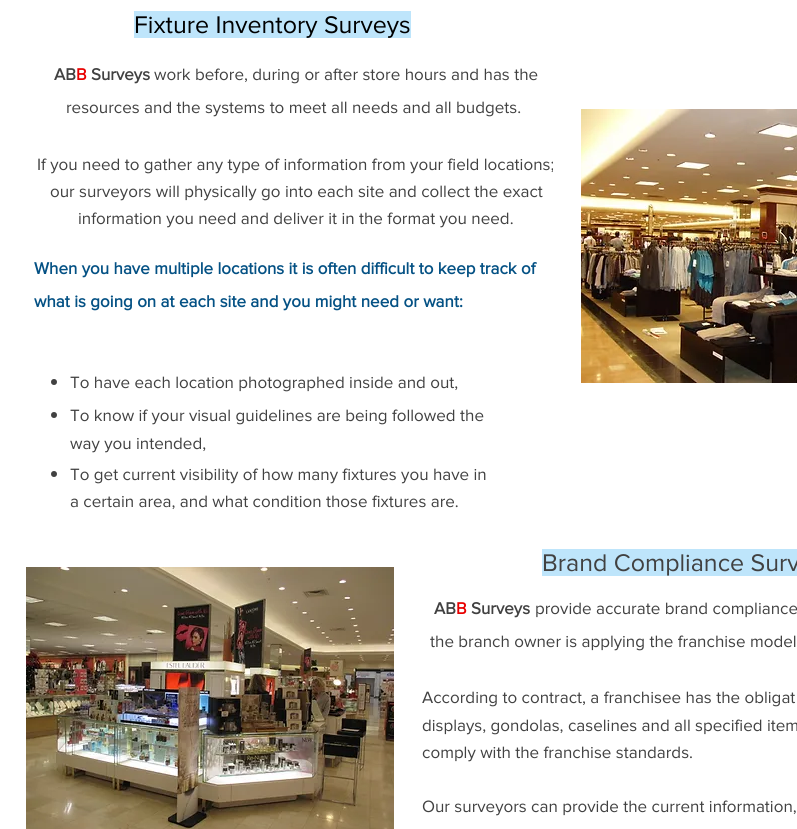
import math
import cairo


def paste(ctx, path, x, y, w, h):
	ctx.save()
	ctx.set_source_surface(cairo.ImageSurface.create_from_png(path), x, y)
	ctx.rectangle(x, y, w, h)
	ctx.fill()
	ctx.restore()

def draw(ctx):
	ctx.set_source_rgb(1, 1, 1)
	ctx.paint()
	ctx.set_source_rgb(0.745, 0.898, 0.984)
	ctx.rectangle(134, 11, 277, 27)
	ctx.fill()
	ctx.select_font_face('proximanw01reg')
	ctx.set_font_size(25)
	ctx.set_source_rgb(0, 0, 0)
	ctx.move_to(134, 33)
	ctx.show_text('Fixture Inventory Surveys')
	ctx.select_font_face('proximanw01reg', cairo.FONT_SLANT_NORMAL, cairo.FONT_WEIGHT_BOLD)
	ctx.set_font_size(17)
	ctx.set_source_rgb(0.255, 0.255, 0.255)
	ctx.move_to(54, 80)
	ctx.show_text('AB')
	ctx.set_source_rgb(0.91, 0, 0)
	ctx.move_to(76, 80)
	ctx.show_text('B')
	ctx.set_source_rgb(0.255, 0.255, 0.255)
	ctx.move_to(91, 80)
	ctx.show_text('Surveys')
	ctx.select_font_face('proximanw01reg')
	for x, y, s in [
		(154, 80, 'work before, during or after store hours and has the'),
		(66, 113, 'resources and the systems to meet all needs and all budgets.'),
		(37, 170, 'If you need to gather any type of information from your field locations;'),
		(50, 197, 'our surveyors will physically go into each site and collect the exact'),
		(78, 224, 'information you need and deliver it in the format you need.'),
	]:
		ctx.move_to(x, y)
		ctx.show_text(s)
	paste(ctx, 'media/1.png', 581, 109, 216, 274)
	ctx.select_font_face('proximanw01reg', cairo.FONT_SLANT_NORMAL, cairo.FONT_WEIGHT_BOLD)
	ctx.set_source_rgb(0.016, 0.318, 0.518)
	ctx.move_to(34, 274)
	ctx.show_text('When you have multiple locations it is often difficult to keep track of')
	ctx.move_to(34, 307)
	ctx.show_text('what is going on at each site and you might need or want:')
	ctx.set_source_rgb(0.255, 0.255, 0.255)
	ctx.new_path()
	ctx.arc(54, 382, 3, 0, 2 * math.pi)
	ctx.fill()
	ctx.select_font_face('proximanw01reg')
	ctx.move_to(70, 388)
	ctx.show_text('To have each location photographed inside and out,')
	ctx.new_path()
	ctx.arc(54, 415, 3, 0, 2 * math.pi)
	ctx.fill()
	ctx.move_to(70, 421)
	ctx.show_text('To know if your visual guidelines are being followed the')
	ctx.move_to(70, 449)
	ctx.show_text('way you intended,')
	ctx.new_path()
	ctx.arc(54, 474, 3, 0, 2 * math.pi)
	ctx.fill()
	ctx.move_to(70, 480)
	ctx.show_text('To get current visibility of how many fixtures you have in')
	ctx.move_to(70, 507)
	ctx.show_text('a certain area, and what condition those fixtures are.')
	paste(ctx, 'media/2.png', 26, 567, 368, 262)
	ctx.set_source_rgb(0.745, 0.898, 0.984)
	ctx.rectangle(542, 549, 255, 27)
	ctx.fill()
	ctx.set_font_size(25)
	ctx.set_source_rgb(0.255, 0.255, 0.255)
	ctx.move_to(542, 571)
	ctx.show_text('Brand Compliance Surv')
	ctx.select_font_face('proximanw01reg', cairo.FONT_SLANT_NORMAL, cairo.FONT_WEIGHT_BOLD)
	ctx.set_font_size(17)
	ctx.move_to(434, 614)
	ctx.show_text('AB')
	ctx.set_source_rgb(0.91, 0, 0)
	ctx.move_to(456, 614)
	ctx.show_text('B')
	ctx.set_source_rgb(0.255, 0.255, 0.255)
	ctx.move_to(471, 614)
	ctx.show_text('Surveys')
	ctx.select_font_face('proximanw01reg')
	for x, y, s in [
		(535, 614, 'provide accurate brand compliance'),
		(430, 647, 'the branch owner is applying the franchise model'),
		(422, 703, 'According to contract, a franchisee has the obligat'),
		(422, 731, 'displays, gondolas, caselines and all specified item'),
		(422, 758, 'comply with the franchise standards.'),
		(422, 812, 'Our surveyors can provide the current information,'),
	]:
		ctx.move_to(x, y)
		ctx.show_text(s)


surface = cairo.ImageSurface(cairo.FORMAT_RGB24, 797, 829)
ctx = cairo.Context(surface)
options = cairo.FontOptions()
options.set_hint_metrics(cairo.HINT_METRICS_OFF)
options.set_hint_style(cairo.HINT_STYLE_NONE)
ctx.set_font_options(options)
ctx.set_miter_limit(4)
draw(ctx)
surface.write_to_png('image.png')
